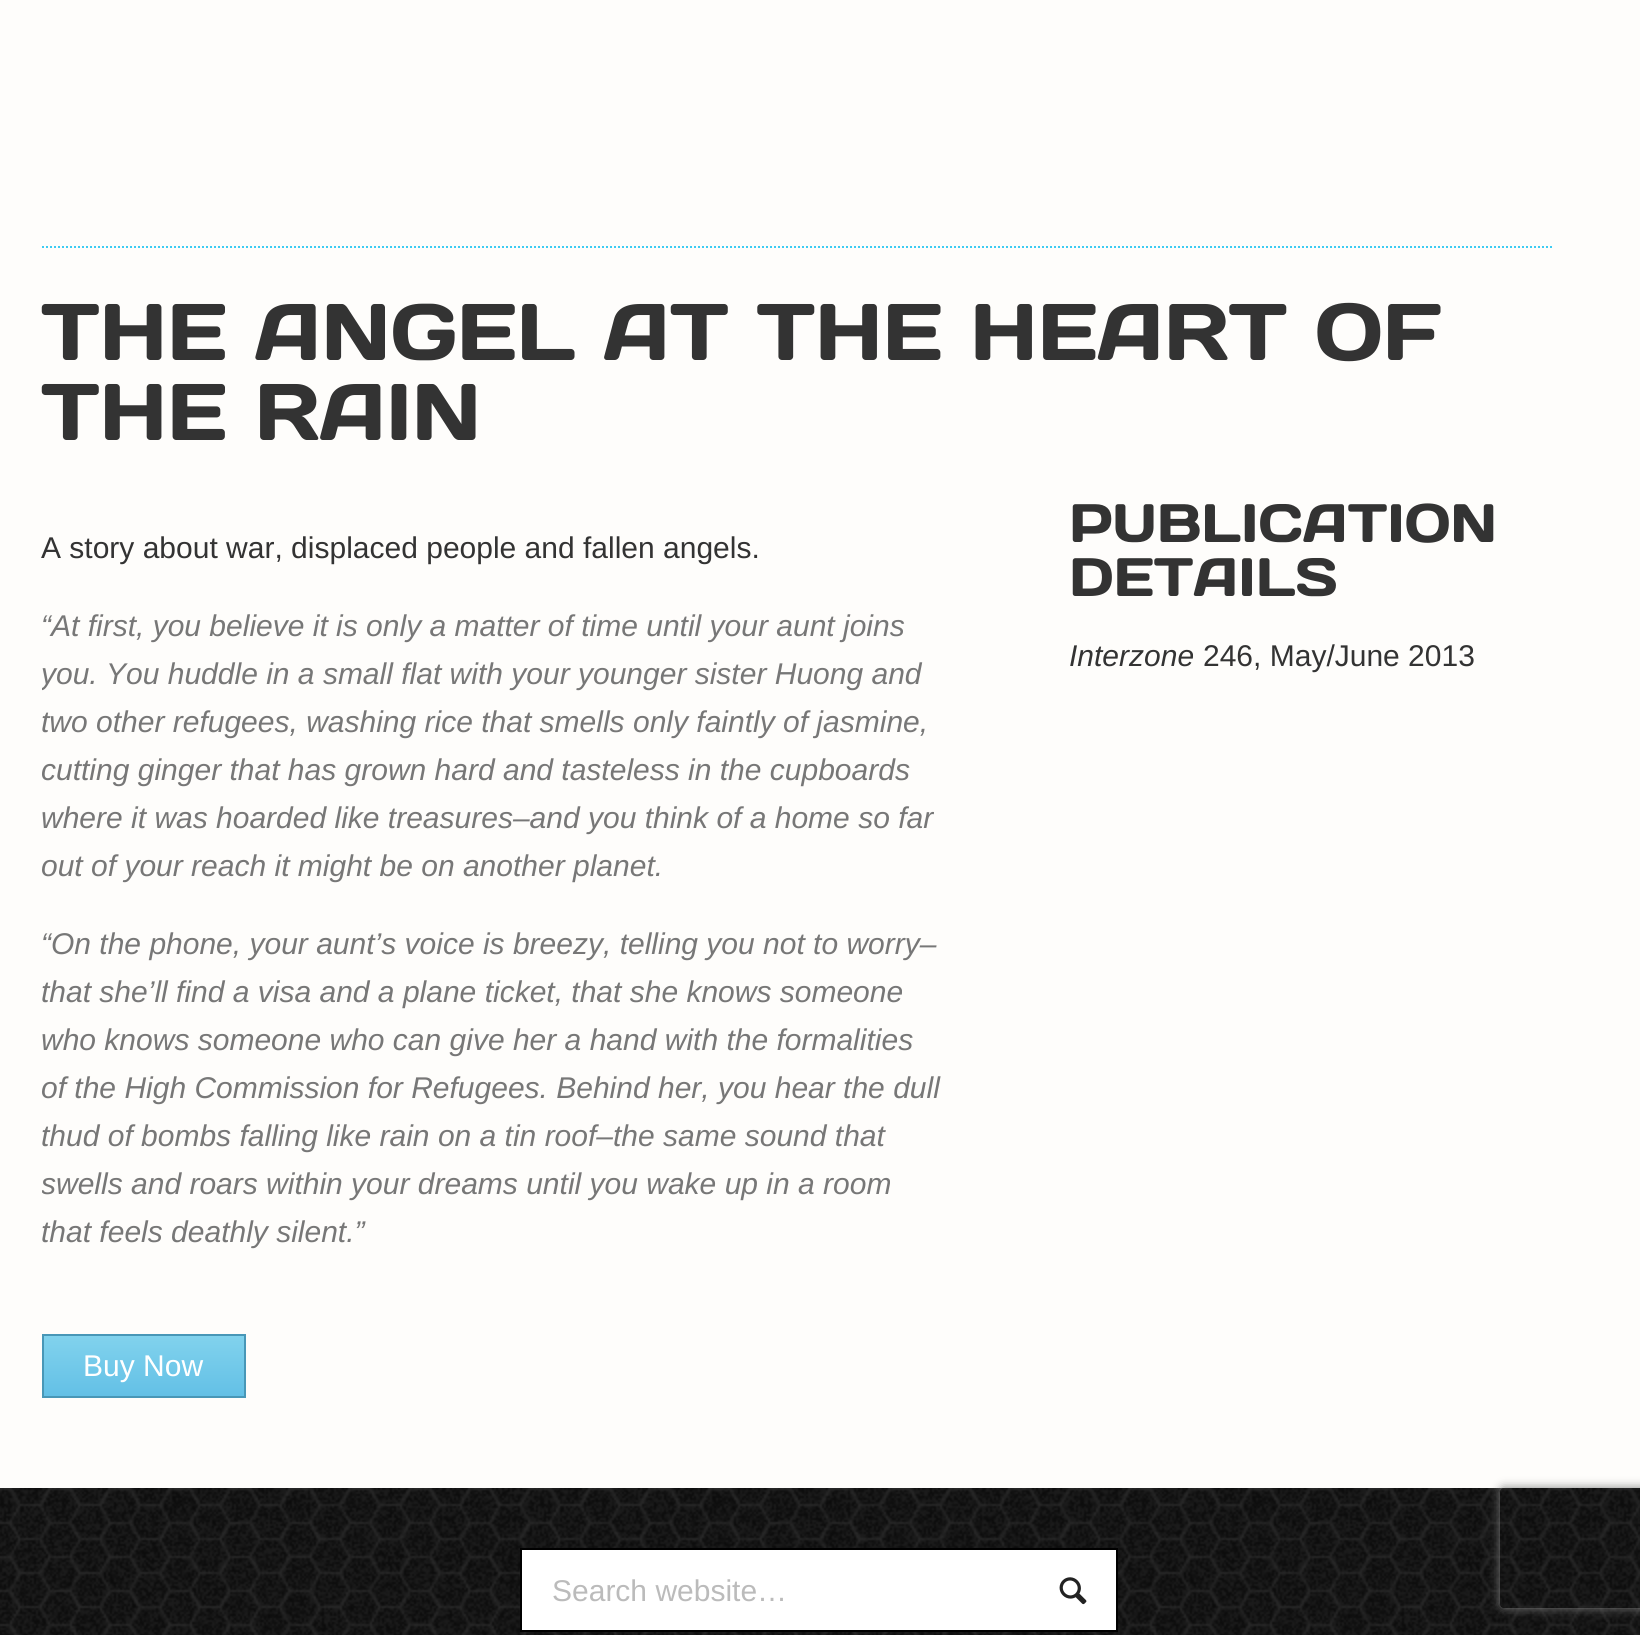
import math
import cairo


def round_path(ctx, x, y, w, h, r):
	ctx.new_sub_path()
	for i, (u, v) in enumerate([(x + w - r, y + h - r), (x + r, y + h - r), (x + r, y + r), (x + w - r, y + r)]):
		ctx.arc(u, v, r, i * math.pi / 2, (i + 1) * math.pi / 2)
	ctx.close_path()

def blur_box(ctx, x, y, w, h, r, blur, alpha):
	ctx.push_group_with_content(cairo.CONTENT_ALPHA)
	ctx.set_operator(cairo.OPERATOR_SOURCE)
	for i in range(15, -16, -2):
		e = blur * i / 6
		if min(w, h) + 2 * e > 0:
			ctx.set_source_rgba(0, 0, 0, alpha * math.erfc((i - 1) / 8.5) / 2)
			round_path(ctx, x - e, y - e, w + 2 * e, h + 2 * e, max(0, min(r + e + blur * .6, min(w, h) / 2 + e)))
			ctx.fill()
	ctx.mask(ctx.pop_group())

def paste(ctx, path, x, y, w, h):
	ctx.save()
	ctx.set_source_surface(cairo.ImageSurface.create_from_png(path), x, y)
	ctx.rectangle(x, y, w, h)
	ctx.fill()
	ctx.restore()

def draw(ctx):
	ctx.set_source_rgb(0.996, 0.992, 0.984)
	ctx.paint()
	ctx.new_path()
	ctx.move_to(42, 247)
	ctx.line_to(1554, 247)
	ctx.set_source_rgb(0.239, 0.8, 0.953)
	ctx.set_dash([2, 2])
	ctx.stroke()
	ctx.select_font_face('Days')
	ctx.set_font_size(80)
	ctx.set_source_rgb(0.2, 0.2, 0.2)
	ctx.move_to(41, 360)
	ctx.show_text('THE ANGEL AT THE HEART OF')
	ctx.move_to(41, 440)
	ctx.show_text('THE RAIN')
	ctx.select_font_face('Liberation Sans')
	ctx.set_font_size(30)
	ctx.move_to(41, 558)
	ctx.show_text('A story about war, displaced people and fallen angels.')
	ctx.select_font_face('Liberation Sans', cairo.FONT_SLANT_ITALIC)
	ctx.set_source_rgb(0.467, 0.467, 0.467)
	ctx.move_to(41, 636)
	ctx.show_text('“At first, you believe it is only a matter of time until your aunt joins')
	ctx.save()
	ctx.rectangle(42, 494, 902, 934)
	ctx.clip()
	ctx.move_to(41, 684)
	ctx.show_text('you. You huddle in a small flat with your younger sister Huong and')
	ctx.restore()
	for x, y, s in [
		(41, 732, 'two other refugees, washing rice that smells only faintly of jasmine,'),
		(41, 780, 'cutting ginger that has grown hard and tasteless in the cupboards'),
		(41, 828, 'where it was hoarded like treasures–and you think of a home so far'),
		(41, 876, 'out of your reach it might be on another planet.'),
		(41, 954, '“On the phone, your aunt’s voice is breezy, telling you not to worry–'),
		(41, 1002, 'that she’ll find a visa and a plane ticket, that she knows someone'),
		(41, 1050, 'who knows someone who can give her a hand with the formalities'),
		(41, 1098, 'of the High Commission for Refugees. Behind her, you hear the dull'),
		(41, 1146, 'thud of bombs falling like rain on a tin roof–the same sound that'),
	]:
		ctx.move_to(x, y)
		ctx.show_text(s)
	ctx.save()
	ctx.rectangle(42, 494, 902, 934)
	ctx.clip()
	ctx.move_to(41, 1194)
	ctx.show_text('swells and roars within your dreams until you wake up in a room')
	ctx.restore()
	ctx.move_to(41, 1242)
	ctx.show_text('that feels deathly silent.”')
	gradient = cairo.LinearGradient(144, 1336, 144, 1396)
	gradient.add_color_stop_rgba(0, 0.506, 0.824, 0.929, 1)
	gradient.add_color_stop_rgba(1, 0.388, 0.753, 0.902, 1)
	ctx.set_source(gradient)
	ctx.rectangle(44, 1336, 200, 60)
	ctx.fill()
	ctx.rectangle(43, 1335, 202, 62)
	ctx.set_source_rgb(0.282, 0.592, 0.718)
	ctx.set_dash([])
	ctx.stroke()
	ctx.select_font_face('Liberation Sans')
	ctx.set_source_rgb(1, 1, 1)
	ctx.move_to(83, 1376)
	ctx.show_text('Buy Now')
	ctx.select_font_face('Days')
	ctx.set_font_size(54)
	ctx.set_source_rgb(0.2, 0.2, 0.2)
	ctx.move_to(1069, 542)
	ctx.show_text('PUBLICATION')
	ctx.move_to(1069, 596)
	ctx.show_text('DETAILS')
	ctx.select_font_face('Liberation Sans', cairo.FONT_SLANT_ITALIC)
	ctx.set_font_size(30)
	ctx.move_to(1069, 666)
	ctx.show_text('Interzone')
	ctx.select_font_face('Liberation Sans')
	ctx.move_to(1203, 666)
	ctx.show_text('246, May/June 2013')
	paste(ctx, 'media/1.png', 0, 1488, 1640, 147)
	ctx.set_source_rgb(1, 1, 1)
	ctx.rectangle(522, 1550, 594, 80)
	ctx.fill()
	ctx.set_source_rgb(0, 0, 0)
	ctx.rectangle(520, 1548, 598, 2)
	ctx.rectangle(1116, 1548, 2, 84)
	ctx.rectangle(520, 1630, 598, 2)
	ctx.fill()
	paste(ctx, 'media/2.png', 1059, 1577, 28, 28)
	ctx.rectangle(520, 1548, 2, 84)
	ctx.fill()
	ctx.set_source_rgb(0.733, 0.733, 0.733)
	ctx.move_to(552, 1601)
	ctx.show_text('Search website…')
	ctx.save()
	ctx.set_fill_rule(cairo.FILL_RULE_EVEN_ODD)
	ctx.new_path()
	ctx.move_to(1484, 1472)
	ctx.line_to(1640, 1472)
	ctx.line_to(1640, 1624)
	ctx.line_to(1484, 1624)
	ctx.close_path()
	ctx.move_to(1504, 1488)
	ctx.line_to(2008, 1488)
	ctx.curve_to(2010, 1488, 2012, 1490, 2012, 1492)
	ctx.line_to(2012, 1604)
	ctx.curve_to(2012, 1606, 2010, 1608, 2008, 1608)
	ctx.line_to(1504, 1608)
	ctx.curve_to(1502, 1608, 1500, 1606, 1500, 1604)
	ctx.line_to(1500, 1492)
	ctx.curve_to(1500, 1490, 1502, 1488, 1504, 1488)
	ctx.close_path()
	ctx.clip()
	ctx.set_source_rgb(0.502, 0.502, 0.502)
	blur_box(ctx, 1500, 1488, 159, 120, 4, 5, 1)
	ctx.restore()


surface = cairo.ImageSurface(cairo.FORMAT_RGB24, 1640, 1635)
ctx = cairo.Context(surface)
options = cairo.FontOptions()
options.set_hint_metrics(cairo.HINT_METRICS_OFF)
options.set_hint_style(cairo.HINT_STYLE_NONE)
ctx.set_font_options(options)
ctx.set_miter_limit(4)
draw(ctx)
surface.write_to_png('image.png')
